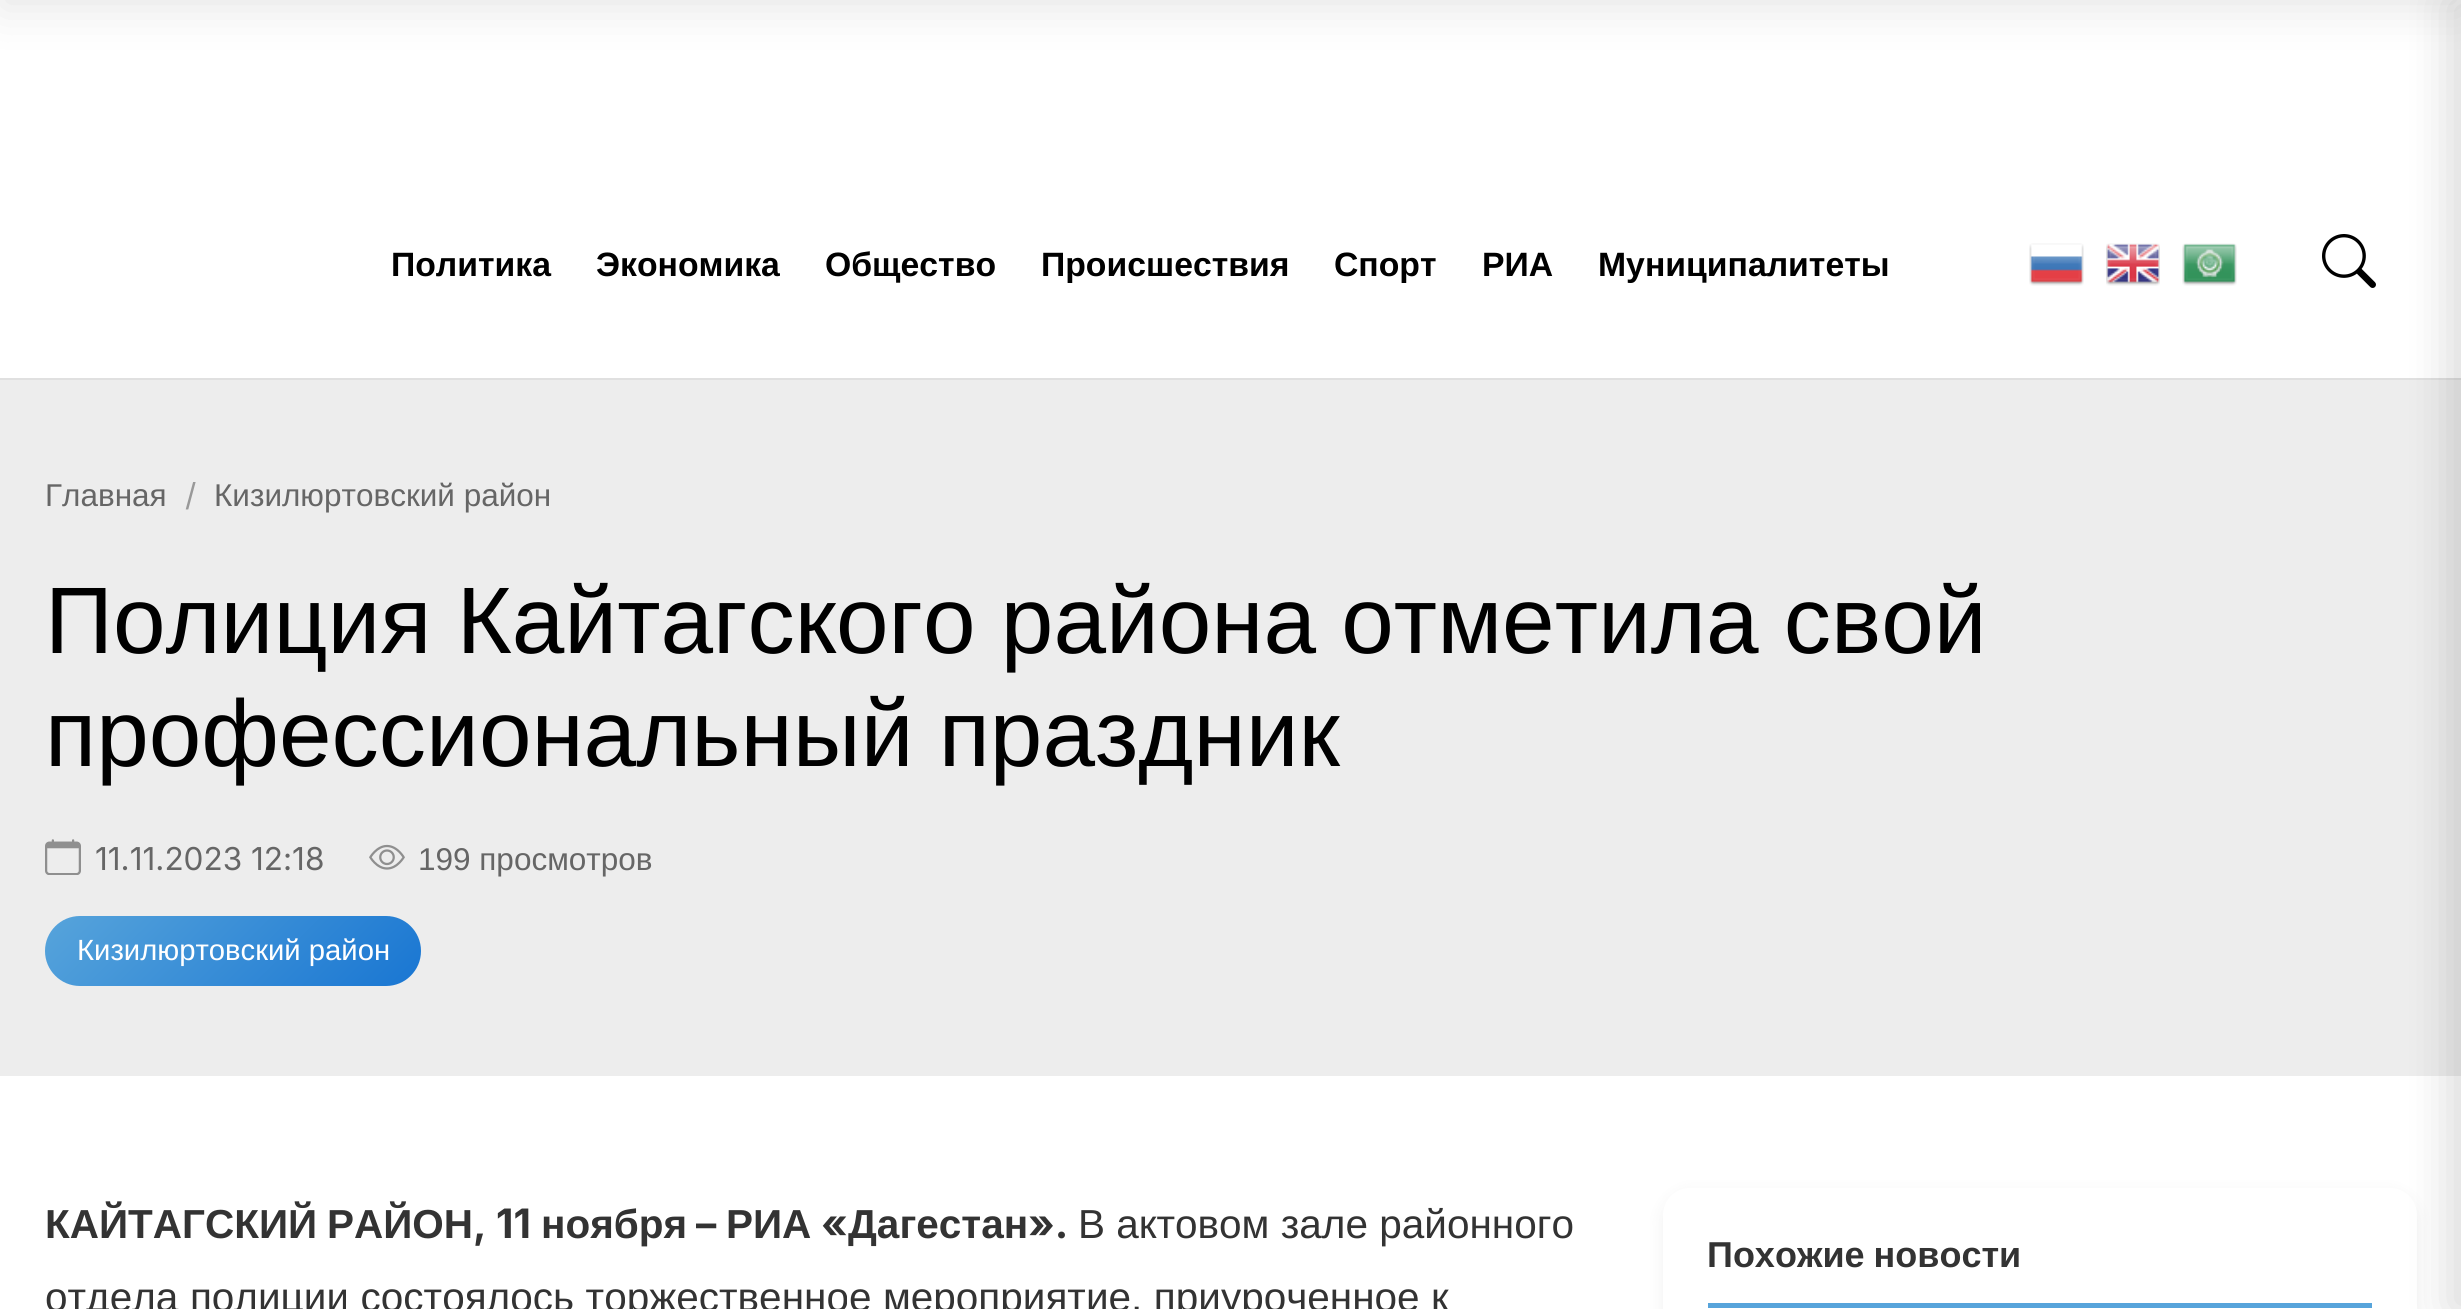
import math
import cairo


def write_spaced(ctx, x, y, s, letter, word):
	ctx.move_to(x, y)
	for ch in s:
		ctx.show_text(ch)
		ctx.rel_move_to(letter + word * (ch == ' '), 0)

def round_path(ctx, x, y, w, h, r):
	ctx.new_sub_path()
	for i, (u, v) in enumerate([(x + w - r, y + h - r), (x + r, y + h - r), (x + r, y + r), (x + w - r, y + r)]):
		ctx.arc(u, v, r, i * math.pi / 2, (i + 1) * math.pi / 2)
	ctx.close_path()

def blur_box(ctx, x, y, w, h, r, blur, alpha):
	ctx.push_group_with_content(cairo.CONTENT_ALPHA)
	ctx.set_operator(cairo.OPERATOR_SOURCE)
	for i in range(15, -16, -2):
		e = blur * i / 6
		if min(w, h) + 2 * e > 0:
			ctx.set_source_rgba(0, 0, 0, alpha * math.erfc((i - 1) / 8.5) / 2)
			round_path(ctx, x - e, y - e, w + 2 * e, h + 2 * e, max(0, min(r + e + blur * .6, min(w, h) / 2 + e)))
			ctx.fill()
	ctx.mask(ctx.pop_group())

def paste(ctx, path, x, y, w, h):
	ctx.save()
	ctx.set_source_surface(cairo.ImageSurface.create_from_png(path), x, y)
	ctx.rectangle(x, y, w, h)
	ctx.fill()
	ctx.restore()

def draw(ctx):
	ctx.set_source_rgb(1, 1, 1)
	ctx.paint()
	ctx.set_source_rgb(0, 0, 0)
	blur_box(ctx, 0, -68, 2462, 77, 0, 22.5, 0.1)
	ctx.set_source_rgb(0.878, 0.878, 0.878)
	ctx.rectangle(0, 378, 2461, 2)
	ctx.fill()
	ctx.select_font_face('Liberation Sans', cairo.FONT_SLANT_NORMAL, cairo.FONT_WEIGHT_BOLD)
	ctx.set_font_size(33.75)
	ctx.set_source_rgb(0, 0, 0)
	for x, y, s in [
		(391, 276, 'Политика'),
		(596, 276, 'Экономика'),
		(825, 276, 'Общество'),
		(1041, 276, 'Происшествия'),
		(1334, 276, 'Спорт'),
		(1482, 276, 'РИА'),
		(1598, 276, 'Муниципалитеты'),
	]:
		ctx.move_to(x, y)
		ctx.show_text(s)
	paste(ctx, 'media/1.png', 2029, 243, 55, 43)
	paste(ctx, 'media/2.png', 2106, 243, 54, 43)
	paste(ctx, 'media/3.png', 2182, 243, 55, 43)
	paste(ctx, 'media/4.png', 2322, 234, 54, 54)
	ctx.set_source_rgb(0.929, 0.929, 0.929)
	ctx.rectangle(0, 380, 2461, 696)
	ctx.fill()
	ctx.set_source_rgb(0, 0, 0)
	blur_box(ctx, 1663, 1193, 754, 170, 27, 9, 0.06)
	ctx.set_source_rgb(1, 1, 1)
	round_path(ctx, 1663, 1188, 754, 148, 27)
	ctx.fill()
	ctx.set_source_rgb(0, 0, 0)
	blur_box(ctx, 2450, 0, 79, 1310, 0, 22.5, 0.15)
	ctx.select_font_face('Liberation Sans')
	ctx.set_font_size(31.5)
	ctx.set_source_rgb(0.4, 0.4, 0.4)
	ctx.move_to(45, 506)
	ctx.show_text('Главная')
	ctx.select_font_face('Inter')
	ctx.set_source_rgb(0.6, 0.6, 0.6)
	ctx.move_to(185, 506)
	ctx.show_text('/')
	ctx.select_font_face('Liberation Sans')
	ctx.set_source_rgb(0.4, 0.4, 0.4)
	ctx.move_to(214, 506)
	ctx.show_text('Кизилюртовский район')
	ctx.set_font_size(94.5)
	ctx.set_source_rgb(0, 0, 0)
	write_spaced(ctx, 45, 653, 'Полиция Кайтагского района отметила свой', 0, -1)
	write_spaced(ctx, 45, 766, 'профессиональный праздник', 0, -1)
	paste(ctx, 'media/5.png', 45, 839, 36, 36)
	ctx.select_font_face('Inter')
	ctx.set_font_size(31.5)
	ctx.set_source_rgb(0.4, 0.4, 0.4)
	ctx.move_to(95, 870)
	ctx.show_text('11.11.2023 12:18')
	paste(ctx, 'media/6.png', 369, 844, 36, 26)
	ctx.select_font_face('Liberation Sans')
	ctx.move_to(418, 870)
	ctx.show_text('199 просмотров')
	gradient = cairo.LinearGradient(122, 839, 344, 1062)
	gradient.add_color_stop_rgba(0, 0.341, 0.643, 0.859, 1)
	gradient.add_color_stop_rgba(1, 0.098, 0.463, 0.824, 1)
	ctx.set_source(gradient)
	round_path(ctx, 45, 916, 376, 70, 35)
	ctx.fill()
	ctx.set_font_size(29.25)
	ctx.set_source_rgb(1, 1, 1)
	ctx.move_to(77, 960)
	ctx.show_text('Кизилюртовский район')
	ctx.select_font_face('Liberation Sans', cairo.FONT_SLANT_NORMAL, cairo.FONT_WEIGHT_BOLD)
	ctx.set_font_size(40.5)
	ctx.set_source_rgb(0.2, 0.2, 0.2)
	ctx.move_to(45, 1238)
	ctx.show_text('КАЙТАГСКИЙ')
	ctx.move_to(327, 1238)
	ctx.show_text('РАЙОН')
	ctx.select_font_face('Inter', cairo.FONT_SLANT_NORMAL, cairo.FONT_WEIGHT_BOLD)
	ctx.move_to(473, 1238)
	ctx.show_text(', 11')
	ctx.select_font_face('Liberation Sans', cairo.FONT_SLANT_NORMAL, cairo.FONT_WEIGHT_BOLD)
	ctx.move_to(541, 1238)
	ctx.show_text('ноября')
	ctx.select_font_face('Inter', cairo.FONT_SLANT_NORMAL, cairo.FONT_WEIGHT_BOLD)
	ctx.move_to(696, 1238)
	ctx.show_text('–')
	ctx.select_font_face('Liberation Sans', cairo.FONT_SLANT_NORMAL, cairo.FONT_WEIGHT_BOLD)
	ctx.move_to(726, 1238)
	ctx.show_text('РИА')
	ctx.select_font_face('Inter', cairo.FONT_SLANT_NORMAL, cairo.FONT_WEIGHT_BOLD)
	ctx.move_to(821, 1238)
	ctx.show_text('«')
	ctx.select_font_face('Liberation Sans', cairo.FONT_SLANT_NORMAL, cairo.FONT_WEIGHT_BOLD)
	ctx.move_to(848, 1238)
	ctx.show_text('Дагестан')
	ctx.select_font_face('Inter', cairo.FONT_SLANT_NORMAL, cairo.FONT_WEIGHT_BOLD)
	ctx.move_to(1028, 1238)
	ctx.show_text('».')
	ctx.select_font_face('Liberation Sans')
	ctx.move_to(1078, 1238)
	ctx.show_text('В актовом зале районного')
	write_spaced(ctx, 45, 1311, 'отдела полиции состоялось торжественное мероприятие, приуроченное к', 0, 0.25)
	ctx.set_source_rgb(0.341, 0.643, 0.859)
	ctx.rectangle(1708, 1303, 664, 5)
	ctx.fill()
	ctx.select_font_face('Liberation Sans', cairo.FONT_SLANT_NORMAL, cairo.FONT_WEIGHT_BOLD)
	ctx.set_font_size(36)
	ctx.set_source_rgb(0.2, 0.2, 0.2)
	write_spaced(ctx, 1707, 1267, 'Похожие новости', 0, -1)


surface = cairo.ImageSurface(cairo.FORMAT_RGB24, 2461, 1309)
ctx = cairo.Context(surface)
options = cairo.FontOptions()
options.set_hint_metrics(cairo.HINT_METRICS_OFF)
options.set_hint_style(cairo.HINT_STYLE_NONE)
ctx.set_font_options(options)
ctx.set_miter_limit(4)
draw(ctx)
surface.write_to_png('image.png')
